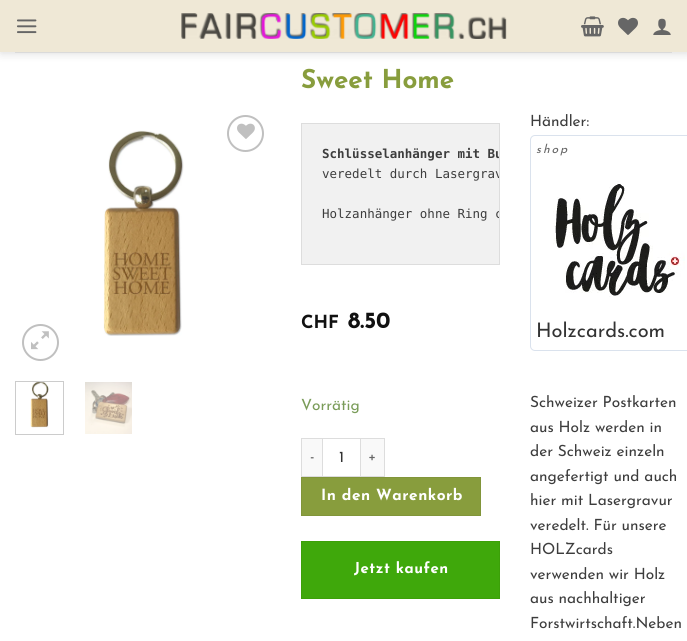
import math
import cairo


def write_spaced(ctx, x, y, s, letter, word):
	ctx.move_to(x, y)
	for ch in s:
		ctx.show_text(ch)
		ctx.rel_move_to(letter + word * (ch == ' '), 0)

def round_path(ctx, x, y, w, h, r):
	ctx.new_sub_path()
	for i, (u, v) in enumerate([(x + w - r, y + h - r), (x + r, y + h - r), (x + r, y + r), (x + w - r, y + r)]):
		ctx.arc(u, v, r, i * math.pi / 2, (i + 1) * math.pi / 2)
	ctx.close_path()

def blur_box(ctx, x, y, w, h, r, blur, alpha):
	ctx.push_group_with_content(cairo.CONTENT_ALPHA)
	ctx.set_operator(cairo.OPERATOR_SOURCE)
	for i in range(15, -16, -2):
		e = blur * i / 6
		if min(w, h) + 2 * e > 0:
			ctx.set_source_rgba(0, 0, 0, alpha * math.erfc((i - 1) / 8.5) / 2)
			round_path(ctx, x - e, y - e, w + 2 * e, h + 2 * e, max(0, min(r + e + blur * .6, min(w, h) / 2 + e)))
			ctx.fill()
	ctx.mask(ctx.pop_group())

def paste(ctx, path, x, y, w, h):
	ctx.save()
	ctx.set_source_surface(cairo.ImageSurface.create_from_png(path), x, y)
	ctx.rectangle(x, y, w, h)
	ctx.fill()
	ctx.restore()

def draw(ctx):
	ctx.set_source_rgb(1, 1, 1)
	ctx.paint()
	ctx.set_source_rgb(0, 0, 0)
	blur_box(ctx, 1, 1, 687, 52, 0, 5, 0.15)
	ctx.set_source_rgb(0.937, 0.91, 0.839)
	ctx.rectangle(0, 0, 687, 52)
	ctx.fill()
	paste(ctx, 'media/1.png', 17, 19, 20, 15)
	paste(ctx, 'media/2.png', 181, 13, 326, 26)
	paste(ctx, 'media/3.png', 581, 16, 23, 21)
	paste(ctx, 'media/4.png', 618, 17, 20, 18)
	paste(ctx, 'media/5.png', 653, 18, 18, 17)
	ctx.set_source_rgba(0.239, 0.239, 0.239, 0.1)
	ctx.rectangle(15, 52, 657, 1)
	ctx.fill()
	ctx.select_font_face('Josefin Sans', cairo.FONT_SLANT_NORMAL, cairo.FONT_WEIGHT_BOLD)
	ctx.set_font_size(26)
	ctx.set_source_rgb(0.533, 0.616, 0.239)
	ctx.move_to(301, 88)
	ctx.show_text('Sweet Home')
	paste(ctx, 'media/6.png', 103, 130, 81, 206)
	ctx.arc(245.5, 133.5, 17.5, 0, 2 * math.pi)
	ctx.set_source_rgb(0.753, 0.753, 0.753)
	ctx.stroke()
	paste(ctx, 'media/7.png', 237, 123, 18, 16)
	ctx.arc(40.5, 342.5, 17.5, 0, 2 * math.pi)
	ctx.stroke()
	paste(ctx, 'media/8.png', 31, 331, 18, 19)
	ctx.rectangle(15.5, 381.5, 48, 53)
	ctx.set_source_rgb(0.8, 0.8, 0.8)
	ctx.set_line_width(1)
	ctx.stroke()
	paste(ctx, 'media/9.png', 30, 382, 19, 46)
	paste(ctx, 'media/10.png', 85, 382, 47, 52)
	ctx.set_source_rgb(0.945, 0.945, 0.945)
	ctx.rectangle(301.5, 123.5, 198, 141)
	ctx.fill_preserve()
	ctx.set_source_rgb(0.867, 0.867, 0.867)
	ctx.stroke()
	ctx.save()
	ctx.rectangle(302, 124, 197, 140)
	ctx.clip()
	ctx.select_font_face('DejaVu Sans Mono', cairo.FONT_SLANT_NORMAL, cairo.FONT_WEIGHT_BOLD)
	ctx.set_font_size(12.5)
	ctx.set_source_rgb(0.239, 0.239, 0.239)
	ctx.move_to(322, 158)
	ctx.show_text('Schlüsselanhänger mit Bu')
	ctx.select_font_face('DejaVu Sans Mono')
	ctx.move_to(322, 178)
	ctx.show_text('veredelt durch Lasergrav')
	ctx.move_to(322, 218)
	ctx.show_text('Holzanhänger ohne Ring c')
	ctx.restore()
	ctx.set_font_size(18)
	ctx.set_source_rgb(0.067, 0.067, 0.067)
	ctx.move_to(301, 328)
	ctx.show_text('CHF')
	ctx.set_font_size(23)
	ctx.move_to(348, 328)
	ctx.show_text('8.50')
	ctx.select_font_face('Josefin Sans')
	ctx.set_font_size(15.4)
	ctx.set_source_rgb(0.478, 0.612, 0.349)
	ctx.move_to(301, 410)
	ctx.show_text('Vorrätig')
	ctx.set_source_rgb(0.976, 0.976, 0.976)
	ctx.rectangle(302, 439, 20, 37)
	ctx.fill()
	ctx.set_source_rgb(0.867, 0.867, 0.867)
	ctx.rectangle(301, 438, 21, 1)
	ctx.rectangle(301, 476, 21, 1)
	ctx.rectangle(301, 438, 1, 39)
	ctx.fill()
	ctx.set_font_size(15)
	ctx.set_source_rgb(0.4, 0.4, 0.4)
	write_spaced(ctx, 310, 461, '-', 0.5, 0)
	ctx.rectangle(322.5, 438.5, 38, 38)
	ctx.set_source_rgb(0.867, 0.867, 0.867)
	ctx.stroke()
	ctx.set_font_size(15.4)
	ctx.set_source_rgb(0.2, 0.2, 0.2)
	ctx.move_to(339, 462)
	ctx.show_text('1')
	ctx.set_source_rgb(0.976, 0.976, 0.976)
	ctx.rectangle(361, 439, 23, 37)
	ctx.fill()
	ctx.set_source_rgb(0.867, 0.867, 0.867)
	ctx.rectangle(361, 438, 24, 1)
	ctx.rectangle(384, 438, 1, 39)
	ctx.rectangle(361, 476, 24, 1)
	ctx.fill()
	ctx.set_font_size(15)
	ctx.set_source_rgb(0.4, 0.4, 0.4)
	write_spaced(ctx, 368, 461, '+', 0.5, 0)
	ctx.set_source_rgb(0.533, 0.616, 0.239)
	ctx.rectangle(301.5, 477.5, 179, 38)
	ctx.fill_preserve()
	ctx.set_source_rgb(0.506, 0.584, 0.227)
	ctx.stroke()
	ctx.select_font_face('Josefin Sans', cairo.FONT_SLANT_NORMAL, cairo.FONT_WEIGHT_BOLD)
	ctx.set_font_size(15.4)
	ctx.set_source_rgb(1, 1, 1)
	write_spaced(ctx, 321, 500, 'In den Warenkorb', 0.5, 0)
	ctx.set_source_rgb(0.247, 0.659, 0.043)
	ctx.rectangle(301.5, 541.5, 198, 57)
	ctx.fill_preserve()
	ctx.set_source_rgb(0.235, 0.627, 0.039)
	ctx.stroke()
	ctx.set_font_size(15)
	ctx.set_source_rgb(1, 1, 1)
	write_spaced(ctx, 354, 573, 'Jetzt kaufen', 0.5, 0)
	ctx.select_font_face('Josefin Sans')
	ctx.set_font_size(15.4)
	ctx.set_source_rgb(0.239, 0.239, 0.239)
	ctx.move_to(530, 126)
	ctx.show_text('Händler:')
	round_path(ctx, 530.5, 135.5, 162, 215, 4.5)
	ctx.set_source_rgb(0.855, 0.886, 0.929)
	ctx.stroke()
	ctx.select_font_face('Josefin Sans', cairo.FONT_SLANT_ITALIC)
	ctx.set_font_size(12)
	ctx.set_source_rgb(0.4, 0.4, 0.4)
	write_spaced(ctx, 536, 153, 'shop', 2, 0)
	paste(ctx, 'media/11.png', 553, 181, 132, 116)
	ctx.select_font_face('Josefin Sans')
	ctx.set_font_size(20)
	ctx.set_source_rgb(0.2, 0.2, 0.2)
	ctx.move_to(536, 337)
	ctx.show_text('Holzcards.com')
	ctx.set_font_size(15.4)
	ctx.set_source_rgb(0.239, 0.239, 0.239)
	for x, y, s in [
		(530, 407, 'Schweizer Postkarten'),
		(530, 432, 'aus Holz werden in'),
		(530, 456, 'der Schweiz einzeln'),
		(530, 481, 'angefertigt und auch'),
		(530, 505, 'hier mit Lasergravur'),
		(530, 530, 'veredelt. Für unsere'),
		(530, 554, 'HOLZcards'),
		(530, 579, 'verwenden wir Holz'),
		(530, 603, 'aus nachhaltiger'),
		(530, 628, 'Forstwirtschaft.Neben'),
	]:
		ctx.move_to(x, y)
		ctx.show_text(s)


surface = cairo.ImageSurface(cairo.FORMAT_RGB24, 687, 641)
ctx = cairo.Context(surface)
options = cairo.FontOptions()
options.set_hint_metrics(cairo.HINT_METRICS_OFF)
options.set_hint_style(cairo.HINT_STYLE_NONE)
ctx.set_font_options(options)
ctx.set_miter_limit(4)
draw(ctx)
surface.write_to_png('image.png')
